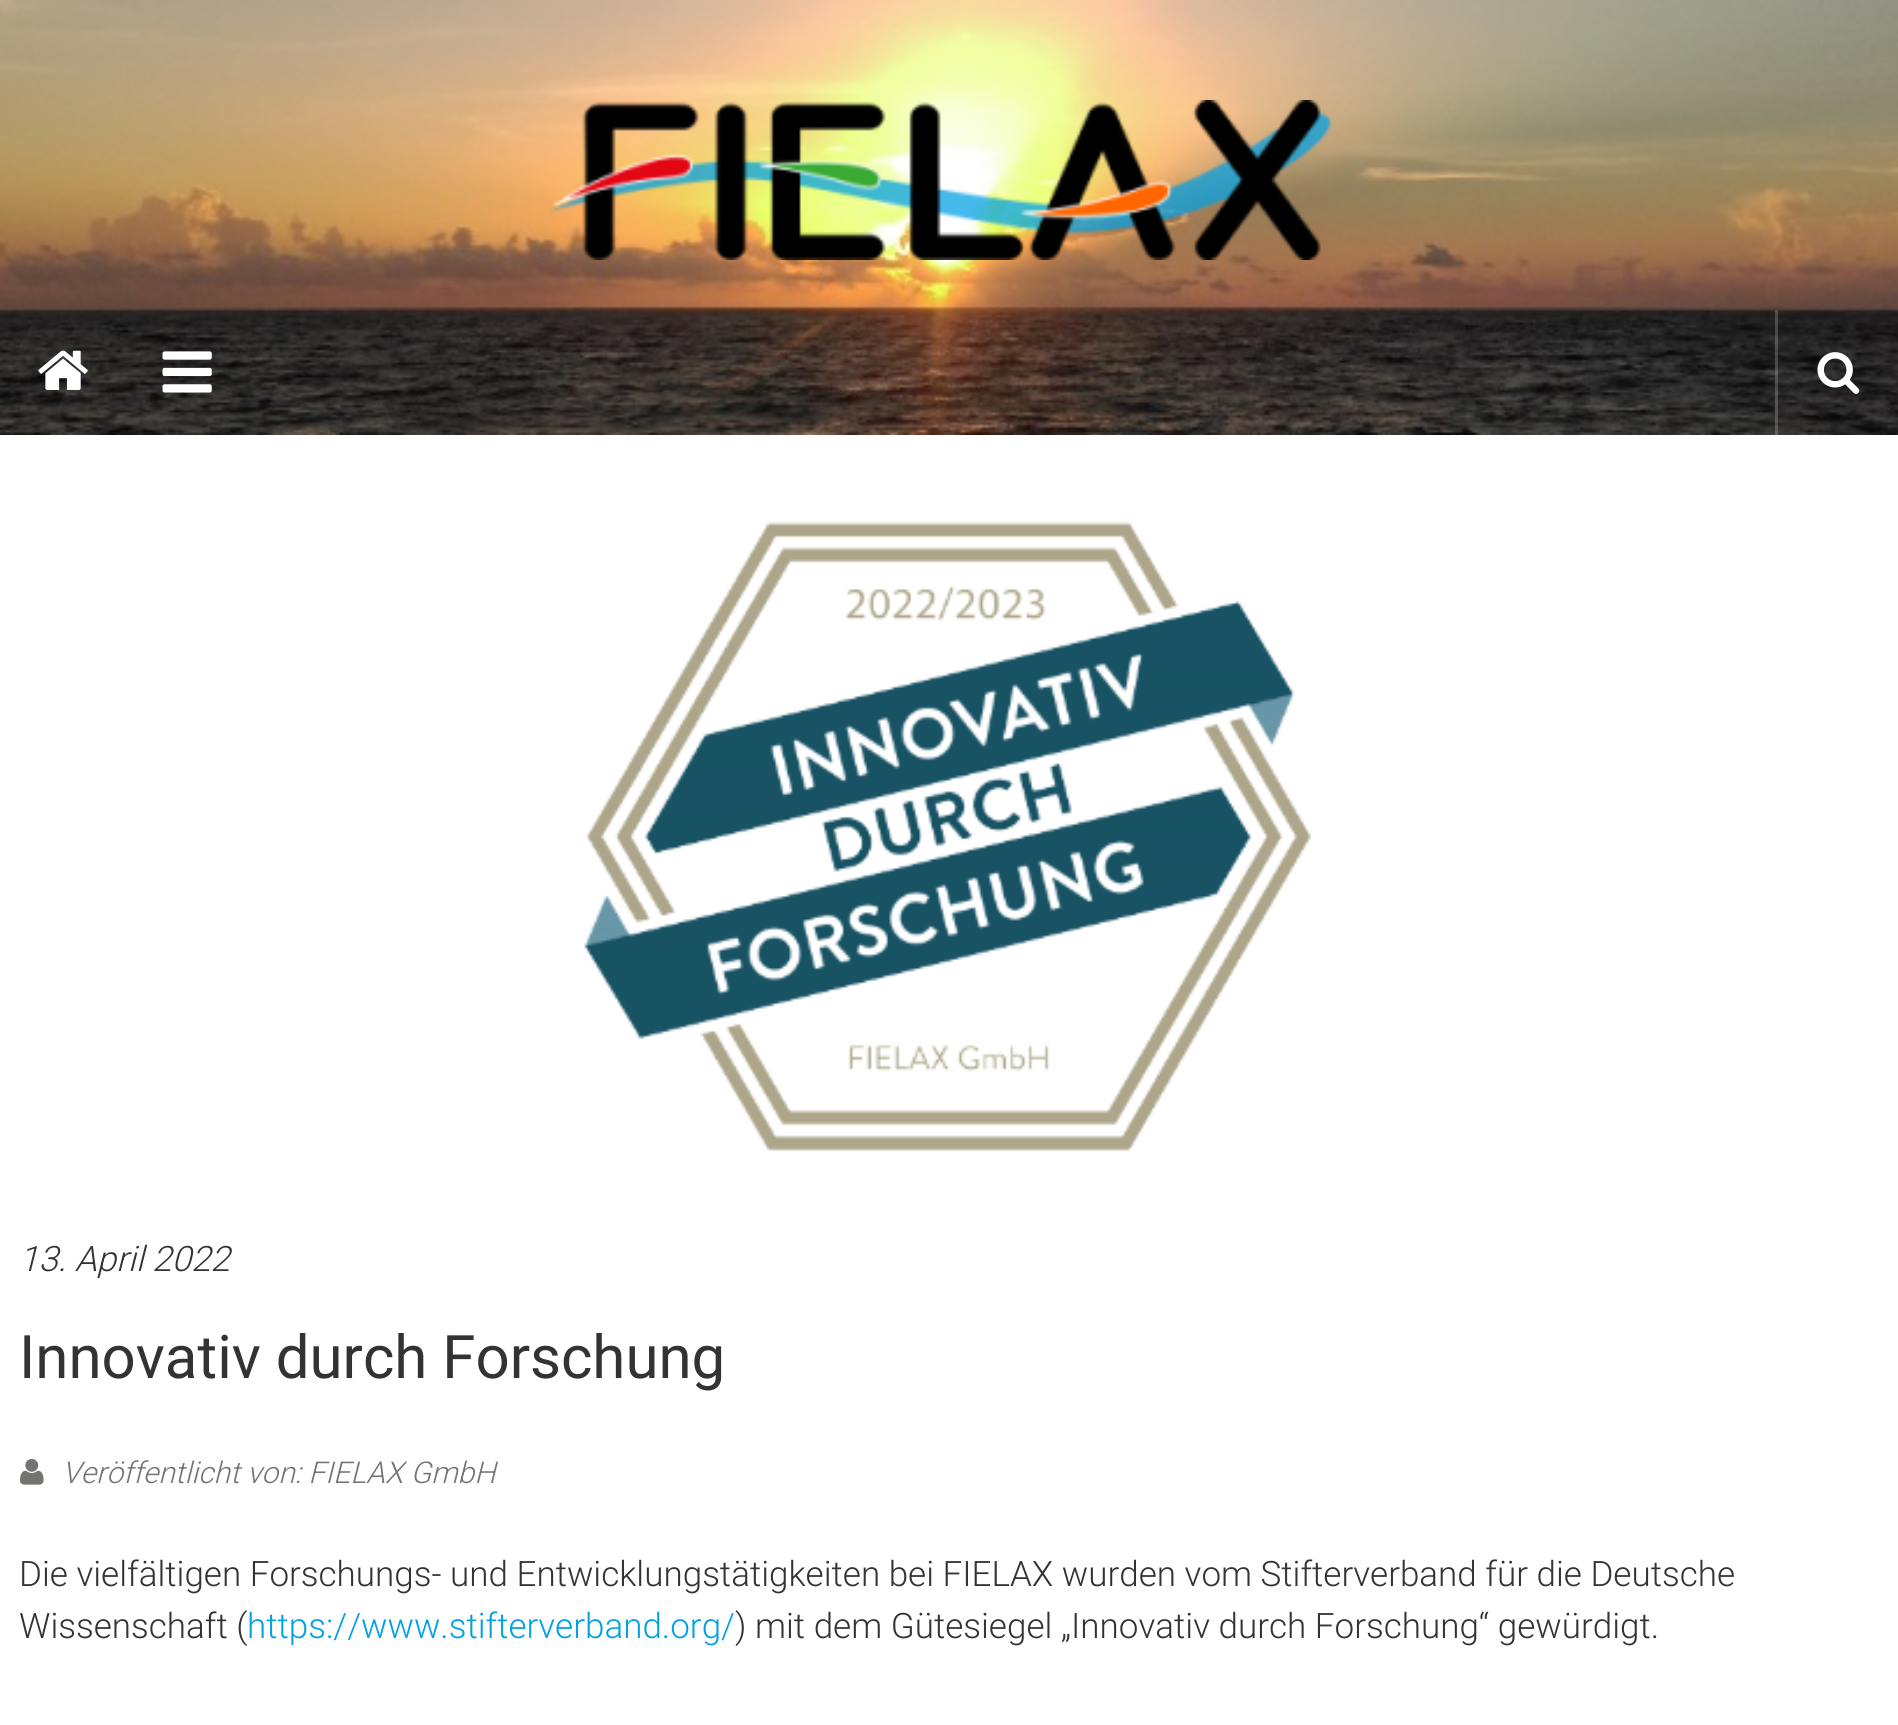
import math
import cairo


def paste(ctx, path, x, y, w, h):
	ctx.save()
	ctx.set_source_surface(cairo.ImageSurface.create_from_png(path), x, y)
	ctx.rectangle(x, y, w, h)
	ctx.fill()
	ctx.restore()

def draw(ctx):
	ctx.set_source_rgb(1, 1, 1)
	ctx.paint()
	paste(ctx, 'media/1.png', 0, 0, 1898, 435)
	paste(ctx, 'media/2.png', 550, 100, 781, 160)
	paste(ctx, 'media/3.png', 38, 350, 50, 40)
	paste(ctx, 'media/4.png', 162, 351, 50, 42)
	ctx.set_source_rgba(1, 1, 1, 0.2)
	ctx.rectangle(1775, 310, 3, 125)
	ctx.fill()
	paste(ctx, 'media/5.png', 1817, 352, 43, 42)
	paste(ctx, 'media/6.png', 584, 521, 728, 630)
	ctx.select_font_face('Roboto Light', cairo.FONT_SLANT_ITALIC)
	ctx.set_font_size(35)
	ctx.set_source_rgb(0.2, 0.2, 0.2)
	ctx.move_to(19, 1271)
	ctx.show_text('13. April 2022')
	ctx.select_font_face('Roboto')
	ctx.set_font_size(60)
	ctx.move_to(19, 1378)
	ctx.show_text('Innovativ durch Forschung')
	paste(ctx, 'media/7.png', 20, 1458, 24, 27)
	ctx.select_font_face('Roboto Light', cairo.FONT_SLANT_ITALIC)
	ctx.set_font_size(30)
	ctx.set_source_rgb(0.463, 0.447, 0.447)
	ctx.move_to(62, 1483)
	ctx.show_text('Veröffentlicht von: FIELAX GmbH')
	ctx.select_font_face('Roboto Light')
	ctx.set_font_size(35)
	ctx.set_source_rgb(0.2, 0.2, 0.2)
	ctx.move_to(19, 1586)
	ctx.show_text('Die vielfältigen Forschungs- und Entwicklungstätigkeiten bei FIELAX wurden vom Stifterverband für die Deutsche')
	ctx.move_to(19, 1638)
	ctx.show_text('Wissenschaft (')
	ctx.set_source_rgb(0, 0.627, 0.894)
	ctx.move_to(247, 1638)
	ctx.show_text('https://www.stifterverband.org/')
	ctx.set_source_rgb(0.2, 0.2, 0.2)
	ctx.move_to(735, 1638)
	ctx.show_text(') mit dem Gütesiegel „Innovativ durch Forschung“ gewürdigt.')


surface = cairo.ImageSurface(cairo.FORMAT_RGB24, 1898, 1725)
ctx = cairo.Context(surface)
options = cairo.FontOptions()
options.set_hint_metrics(cairo.HINT_METRICS_OFF)
options.set_hint_style(cairo.HINT_STYLE_NONE)
ctx.set_font_options(options)
ctx.set_miter_limit(4)
draw(ctx)
surface.write_to_png('image.png')
